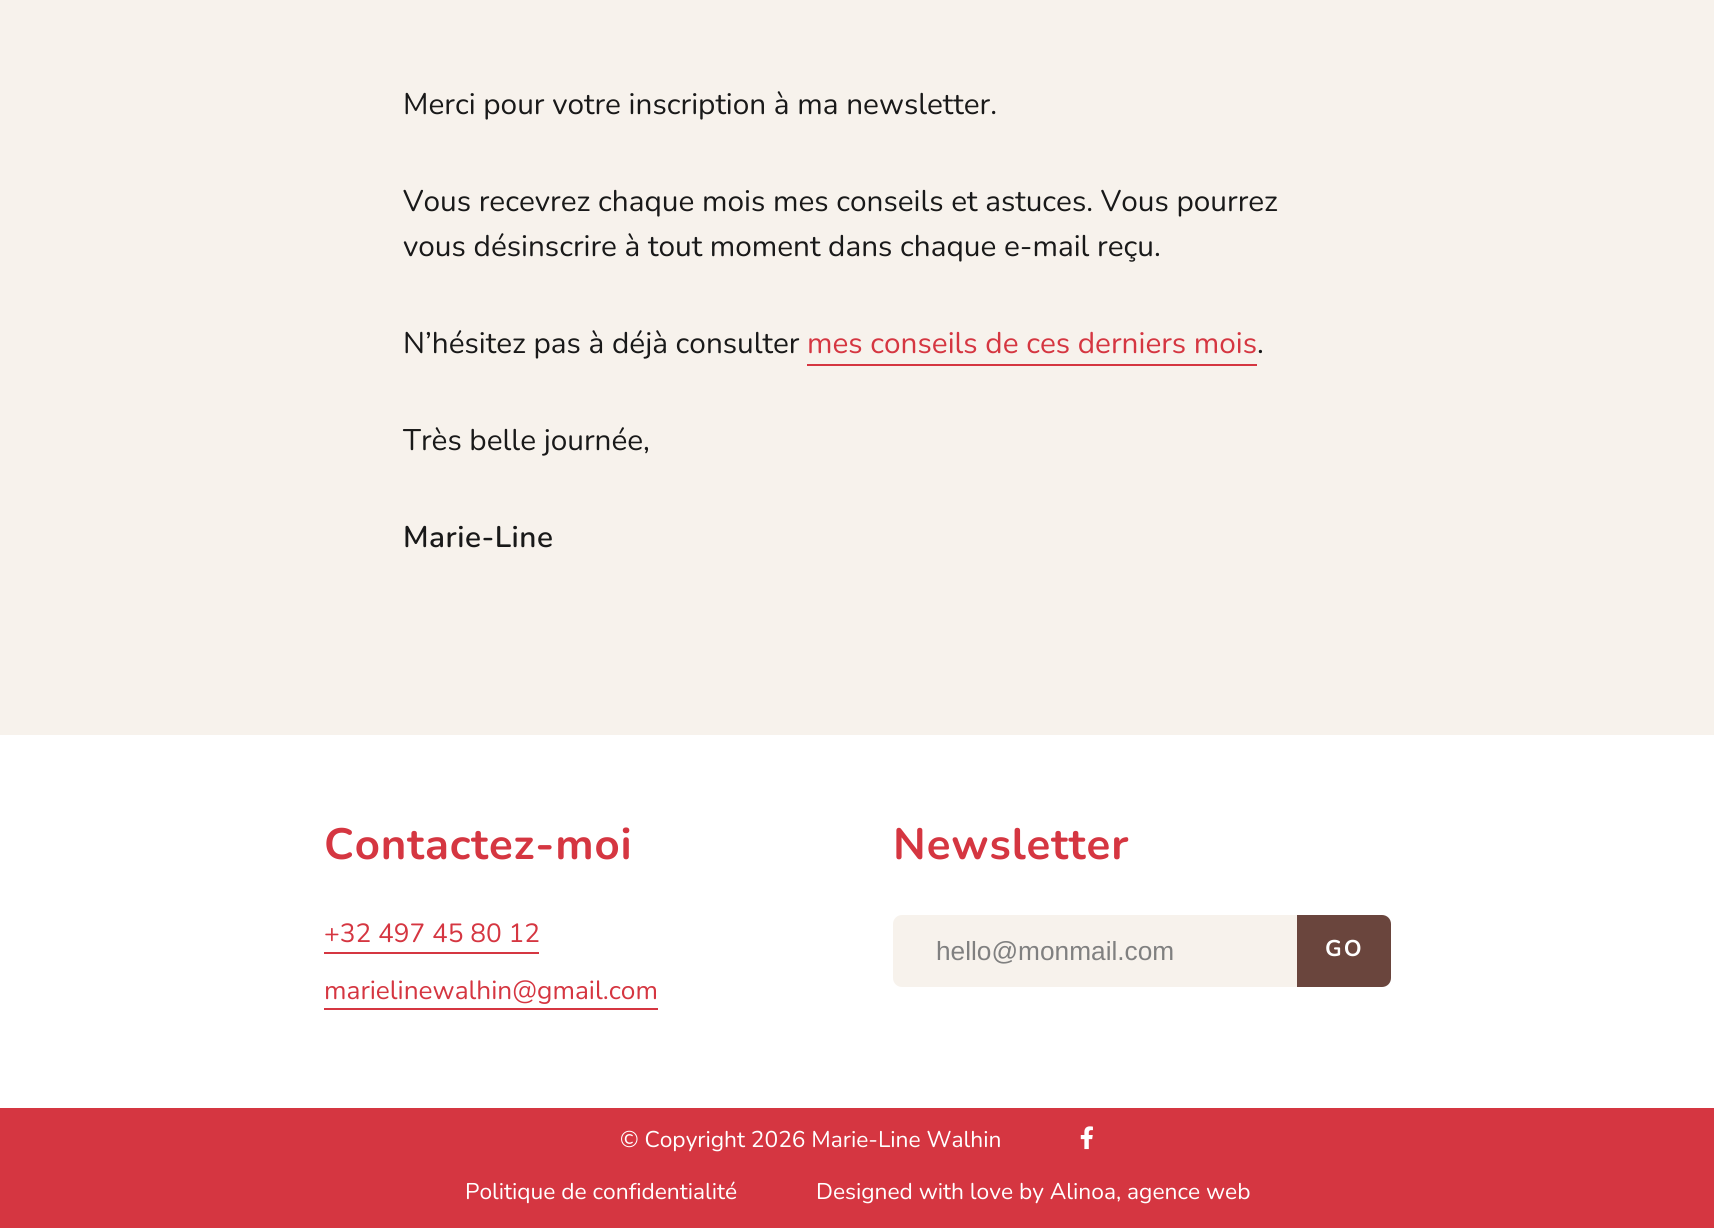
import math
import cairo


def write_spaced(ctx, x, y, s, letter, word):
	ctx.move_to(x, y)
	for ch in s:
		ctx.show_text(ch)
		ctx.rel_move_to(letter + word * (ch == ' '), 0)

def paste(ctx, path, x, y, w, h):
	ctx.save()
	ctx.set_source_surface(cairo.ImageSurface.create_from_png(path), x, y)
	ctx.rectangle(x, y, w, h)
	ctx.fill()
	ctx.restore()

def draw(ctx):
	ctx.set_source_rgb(0.965, 0.949, 0.922)
	ctx.paint()
	ctx.select_font_face('Nunito')
	ctx.set_font_size(29.75)
	ctx.set_source_rgb(0.098, 0.098, 0.098)
	for x, y, s in [
		(403, 114, 'Merci pour votre inscription à ma newsletter.'),
		(403, 211, 'Vous recevrez chaque mois mes conseils et astuces. Vous pourrez'),
		(403, 256, 'vous désinscrire à tout moment dans chaque e-mail reçu.'),
		(403, 353, 'N’hésitez pas à déjà consulter'),
	]:
		ctx.move_to(x, y)
		ctx.show_text(s)
	ctx.set_source_rgb(0.835, 0.212, 0.255)
	ctx.move_to(807, 353)
	ctx.show_text('mes conseils de ces derniers mois')
	ctx.rectangle(807, 364, 450, 2)
	ctx.fill()
	ctx.set_source_rgb(0.098, 0.098, 0.098)
	ctx.move_to(1257, 353)
	ctx.show_text('.')
	ctx.move_to(403, 450)
	ctx.show_text('Très belle journée,')
	ctx.select_font_face('Nunito SemiBold')
	write_spaced(ctx, 403, 547, 'Marie-Line', 0.5, 0)
	ctx.set_source_rgb(1, 1, 1)
	ctx.rectangle(0, 735, 1714, 373)
	ctx.fill()
	ctx.select_font_face('Nunito', cairo.FONT_SLANT_NORMAL, cairo.FONT_WEIGHT_BOLD)
	ctx.set_font_size(43.75)
	ctx.set_source_rgb(0.835, 0.212, 0.255)
	write_spaced(ctx, 324, 859, 'Contactez-moi', 0.9, 0)
	ctx.select_font_face('Nunito')
	ctx.set_font_size(26.25)
	ctx.move_to(324, 942)
	ctx.show_text('+32 497 45 80 12')
	ctx.rectangle(324, 952, 215, 2)
	ctx.fill()
	ctx.move_to(324, 999)
	ctx.show_text('marielinewalhin@gmail.com')
	ctx.rectangle(324, 1008, 334, 2)
	ctx.fill()
	ctx.select_font_face('Nunito', cairo.FONT_SLANT_NORMAL, cairo.FONT_WEIGHT_BOLD)
	ctx.set_font_size(43.75)
	write_spaced(ctx, 893, 859, 'Newsletter', 0.9, 0)
	ctx.set_source_rgb(0.965, 0.949, 0.922)
	ctx.new_path()
	ctx.move_to(902, 915)
	ctx.line_to(1297, 915)
	ctx.line_to(1297, 987)
	ctx.line_to(902, 987)
	ctx.curve_to(897, 987, 893, 983, 893, 978)
	ctx.line_to(893, 924)
	ctx.curve_to(893, 919, 897, 915, 902, 915)
	ctx.close_path()
	ctx.fill()
	ctx.select_font_face('Liberation Sans')
	ctx.set_font_size(26.25)
	ctx.set_source_rgb(0.502, 0.502, 0.502)
	ctx.move_to(936, 960)
	ctx.show_text('hello@monmail.com')
	ctx.set_source_rgb(0.416, 0.271, 0.239)
	ctx.new_path()
	ctx.move_to(1298, 916)
	ctx.line_to(1382, 916)
	ctx.curve_to(1386.5, 916, 1390, 919.5, 1390, 924)
	ctx.line_to(1390, 978)
	ctx.curve_to(1390, 982.5, 1386.5, 986, 1382, 986)
	ctx.line_to(1298, 986)
	ctx.close_path()
	ctx.fill_preserve()
	ctx.stroke()
	ctx.select_font_face('Nunito', cairo.FONT_SLANT_NORMAL, cairo.FONT_WEIGHT_BOLD)
	ctx.set_font_size(22.75)
	ctx.set_source_rgb(1, 1, 1)
	write_spaced(ctx, 1325, 956, 'GO', 2, 0)
	ctx.set_source_rgb(0.835, 0.212, 0.255)
	ctx.rectangle(0, 1108, 1714, 120)
	ctx.fill()
	ctx.select_font_face('Nunito')
	ctx.set_source_rgb(1, 1, 1)
	ctx.move_to(620, 1147)
	ctx.show_text('© Copyright 2026 Marie-Line Walhin')
	paste(ctx, 'media/1.png', 1080, 1126, 13, 24)
	ctx.move_to(465, 1199)
	ctx.show_text('Politique de confidentialité')
	ctx.move_to(816, 1199)
	ctx.show_text('Designed with love by Alinoa, agence web')


surface = cairo.ImageSurface(cairo.FORMAT_RGB24, 1714, 1228)
ctx = cairo.Context(surface)
options = cairo.FontOptions()
options.set_hint_metrics(cairo.HINT_METRICS_OFF)
options.set_hint_style(cairo.HINT_STYLE_NONE)
ctx.set_font_options(options)
ctx.set_miter_limit(4)
draw(ctx)
surface.write_to_png('image.png')
